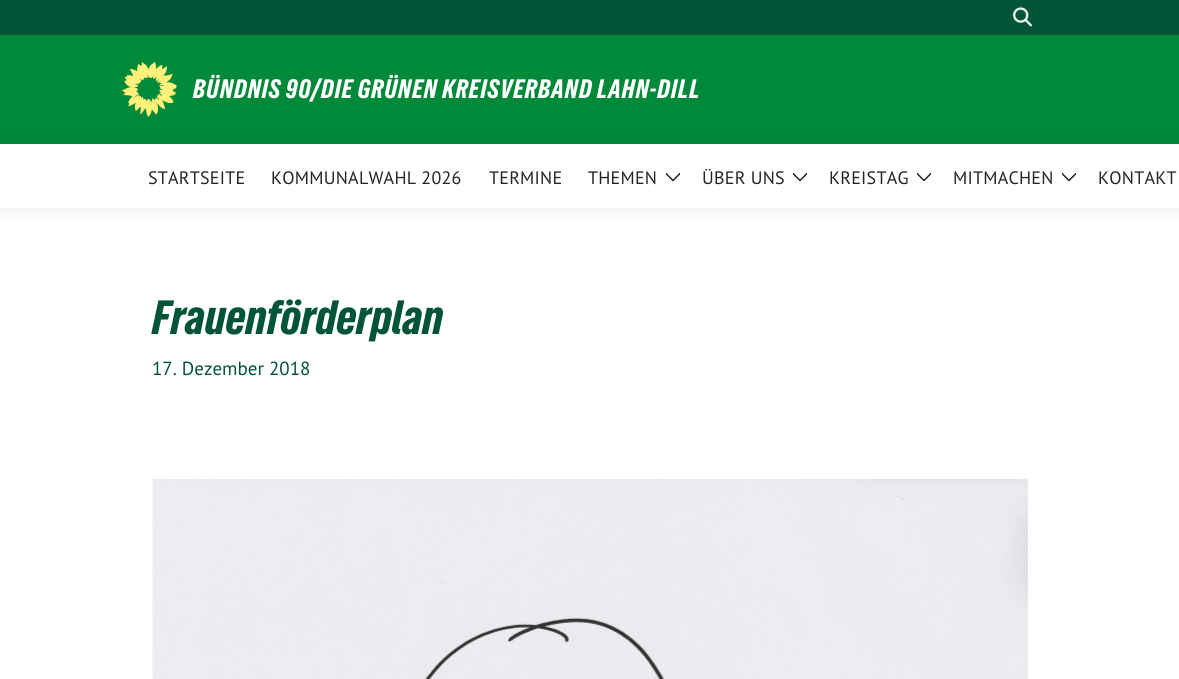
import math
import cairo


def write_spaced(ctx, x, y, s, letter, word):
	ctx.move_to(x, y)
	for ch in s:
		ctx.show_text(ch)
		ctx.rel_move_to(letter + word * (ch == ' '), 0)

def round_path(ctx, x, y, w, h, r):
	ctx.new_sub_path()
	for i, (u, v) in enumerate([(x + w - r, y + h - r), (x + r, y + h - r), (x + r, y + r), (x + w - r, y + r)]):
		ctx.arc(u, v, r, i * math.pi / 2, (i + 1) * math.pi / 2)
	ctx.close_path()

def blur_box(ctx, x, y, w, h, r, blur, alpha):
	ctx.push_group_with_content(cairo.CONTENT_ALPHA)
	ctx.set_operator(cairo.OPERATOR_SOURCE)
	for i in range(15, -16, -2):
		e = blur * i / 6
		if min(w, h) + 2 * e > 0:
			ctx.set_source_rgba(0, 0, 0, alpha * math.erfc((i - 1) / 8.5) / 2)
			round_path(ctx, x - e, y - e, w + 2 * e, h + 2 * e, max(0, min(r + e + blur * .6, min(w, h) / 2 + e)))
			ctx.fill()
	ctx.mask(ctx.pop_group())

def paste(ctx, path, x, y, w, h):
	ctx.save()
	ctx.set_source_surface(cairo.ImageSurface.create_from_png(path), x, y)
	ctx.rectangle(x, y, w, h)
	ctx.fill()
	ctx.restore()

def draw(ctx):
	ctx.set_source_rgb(1, 1, 1)
	ctx.paint()
	ctx.set_source_rgb(0, 0.329, 0.216)
	ctx.rectangle(0, 0, 1179, 35)
	ctx.fill()
	paste(ctx, 'media/1.png', 1013, 7, 19, 20)
	ctx.set_source_rgb(0, 0.537, 0.224)
	ctx.rectangle(0, 35, 1179, 109)
	ctx.fill()
	paste(ctx, 'media/2.png', 122, 62, 55, 55)
	ctx.select_font_face('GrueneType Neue')
	ctx.set_font_size(25)
	ctx.set_source_rgb(1, 1, 1)
	write_spaced(ctx, 193, 98, 'BÜNDNIS 90/DIE GRÜNEN KREISVERBAND LAHN-DILL', 1, 0)
	ctx.save()
	ctx.set_fill_rule(cairo.FILL_RULE_EVEN_ODD)
	ctx.new_path()
	ctx.move_to(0, 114)
	ctx.line_to(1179, 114)
	ctx.line_to(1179, 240)
	ctx.line_to(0, 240)
	ctx.close_path()
	ctx.move_to(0, 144)
	ctx.line_to(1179, 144)
	ctx.line_to(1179, 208)
	ctx.line_to(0, 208)
	ctx.close_path()
	ctx.clip()
	ctx.set_source_rgb(0, 0, 0)
	blur_box(ctx, 0, 145, 1179, 64, 0, 10, 0.08)
	ctx.restore()
	ctx.select_font_face('PT Sans')
	ctx.set_font_size(18)
	ctx.set_source_rgb(0.129, 0.145, 0.161)
	for x, y, s in [
		(148, 184, 'STARTSEITE'),
		(271, 184, 'KOMMUNALWAHL 2026'),
		(489, 184, 'TERMINE'),
		(588, 184, 'THEMEN'),
	]:
		write_spaced(ctx, x, y, s, 0.25, 0)
	ctx.save()
	ctx.rectangle(666, 164, 14, 24)
	ctx.clip()
	ctx.new_path()
	ctx.move_to(664, 171.5)
	ctx.line_to(673, 180.5)
	ctx.line_to(682, 171.5)
	ctx.set_line_width(1.5)
	ctx.set_line_cap(cairo.LINE_CAP_ROUND)
	ctx.set_line_join(cairo.LINE_JOIN_ROUND)
	ctx.stroke()
	ctx.restore()
	write_spaced(ctx, 702, 184, 'ÜBER UNS', 0.25, 0)
	ctx.save()
	ctx.rectangle(793, 164, 14, 24)
	ctx.clip()
	ctx.new_path()
	ctx.move_to(791, 171.5)
	ctx.line_to(800, 180.5)
	ctx.line_to(809, 171.5)
	ctx.set_line_width(1.5)
	ctx.set_line_cap(cairo.LINE_CAP_ROUND)
	ctx.set_line_join(cairo.LINE_JOIN_ROUND)
	ctx.stroke()
	ctx.restore()
	write_spaced(ctx, 829, 184, 'KREISTAG', 0.25, 0)
	ctx.save()
	ctx.rectangle(917, 164, 14, 24)
	ctx.clip()
	ctx.new_path()
	ctx.move_to(915, 171.5)
	ctx.line_to(924, 180.5)
	ctx.line_to(933, 171.5)
	ctx.set_line_width(1.5)
	ctx.set_line_cap(cairo.LINE_CAP_ROUND)
	ctx.set_line_join(cairo.LINE_JOIN_ROUND)
	ctx.stroke()
	ctx.restore()
	write_spaced(ctx, 953, 184, 'MITMACHEN', 0.25, 0)
	ctx.save()
	ctx.rectangle(1062, 164, 14, 24)
	ctx.clip()
	ctx.new_path()
	ctx.move_to(1060, 171.5)
	ctx.line_to(1069, 180.5)
	ctx.line_to(1078, 171.5)
	ctx.set_line_width(1.5)
	ctx.set_line_cap(cairo.LINE_CAP_ROUND)
	ctx.set_line_join(cairo.LINE_JOIN_ROUND)
	ctx.stroke()
	ctx.restore()
	write_spaced(ctx, 1098, 184, 'KONTAKT', 0.25, 0)
	ctx.select_font_face('GrueneType Neue')
	ctx.set_font_size(45)
	ctx.set_source_rgb(0, 0.329, 0.216)
	ctx.move_to(152, 334)
	ctx.show_text('Frauenförderplan')
	ctx.select_font_face('PT Sans')
	ctx.set_font_size(19)
	ctx.move_to(152, 375)
	ctx.show_text('17. Dezember 2018')
	paste(ctx, 'media/3.png', 152, 479, 876, 200)


surface = cairo.ImageSurface(cairo.FORMAT_RGB24, 1179, 679)
ctx = cairo.Context(surface)
options = cairo.FontOptions()
options.set_hint_metrics(cairo.HINT_METRICS_OFF)
options.set_hint_style(cairo.HINT_STYLE_NONE)
ctx.set_font_options(options)
ctx.set_miter_limit(4)
draw(ctx)
surface.write_to_png('image.png')
